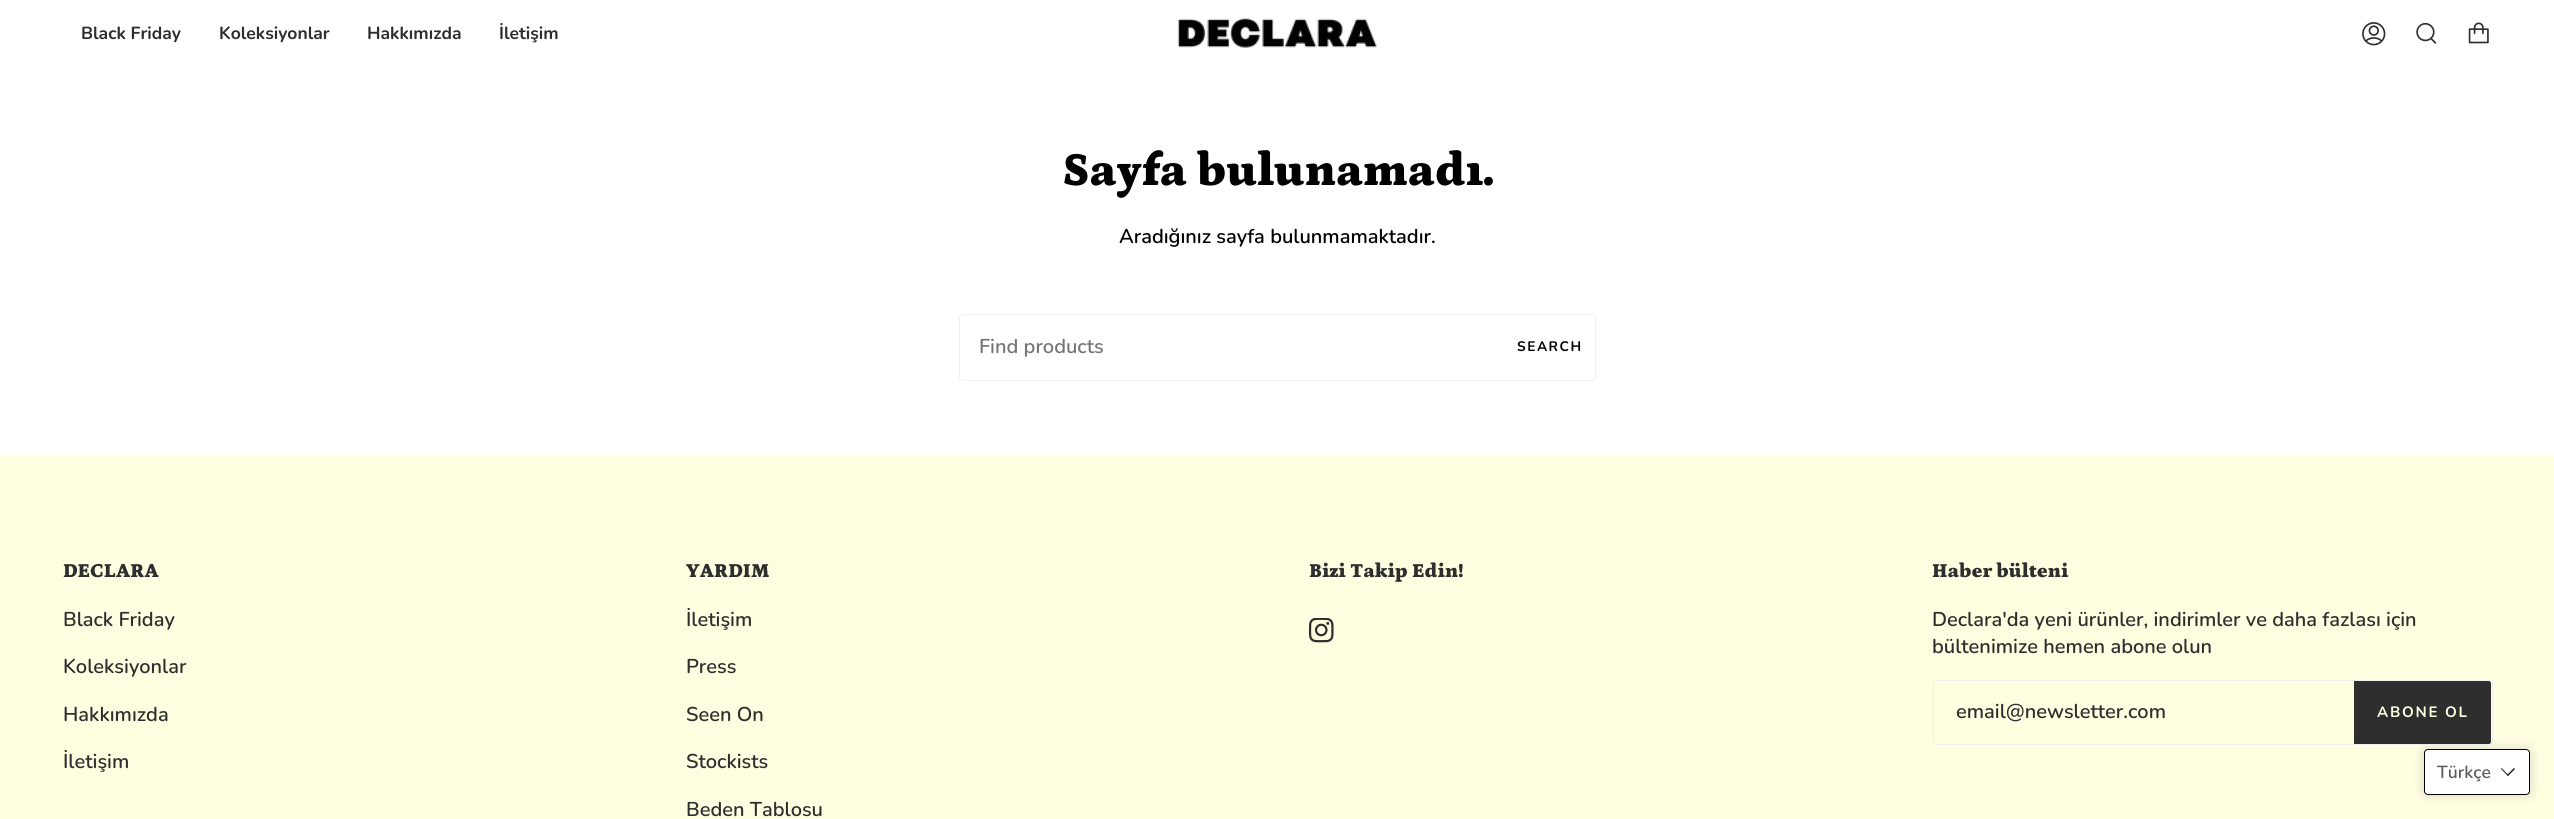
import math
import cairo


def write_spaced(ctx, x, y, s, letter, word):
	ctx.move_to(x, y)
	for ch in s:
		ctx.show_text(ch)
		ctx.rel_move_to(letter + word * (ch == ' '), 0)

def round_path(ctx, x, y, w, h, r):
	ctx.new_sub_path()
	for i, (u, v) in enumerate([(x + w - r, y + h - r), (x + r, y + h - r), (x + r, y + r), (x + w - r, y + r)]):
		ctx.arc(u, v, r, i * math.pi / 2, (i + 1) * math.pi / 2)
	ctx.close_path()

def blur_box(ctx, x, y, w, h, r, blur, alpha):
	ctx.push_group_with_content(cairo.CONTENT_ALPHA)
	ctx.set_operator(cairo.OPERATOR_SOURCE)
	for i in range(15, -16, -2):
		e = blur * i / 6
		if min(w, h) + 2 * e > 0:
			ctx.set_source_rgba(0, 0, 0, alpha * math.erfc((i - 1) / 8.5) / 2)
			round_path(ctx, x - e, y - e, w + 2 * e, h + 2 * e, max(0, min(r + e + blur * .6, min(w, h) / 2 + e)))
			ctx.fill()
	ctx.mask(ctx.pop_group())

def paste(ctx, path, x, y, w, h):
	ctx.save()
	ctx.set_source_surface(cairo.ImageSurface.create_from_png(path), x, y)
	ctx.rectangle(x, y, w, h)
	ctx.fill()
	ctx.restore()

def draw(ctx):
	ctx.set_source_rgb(1, 1, 1)
	ctx.paint()
	ctx.select_font_face('Nunito', cairo.FONT_SLANT_NORMAL, cairo.FONT_WEIGHT_BOLD)
	ctx.set_font_size(17.5)
	ctx.set_source_rgb(0.18, 0.18, 0.18)
	for x, y, s in [
		(81, 39, 'Black Friday'),
		(219, 39, 'Koleksiyonlar'),
		(367, 39, 'Hakkımızda'),
		(499, 39, 'İletişim'),
	]:
		ctx.move_to(x, y)
		ctx.show_text(s)
	paste(ctx, 'media/1.png', 1177, 18, 200, 30)
	paste(ctx, 'media/2.png', 2362, 22, 24, 24)
	paste(ctx, 'media/3.png', 2416, 22, 21, 22)
	paste(ctx, 'media/4.png', 2468, 22, 21, 22)
	ctx.select_font_face('Petrona Black')
	ctx.set_font_size(47.5)
	ctx.set_source_rgb(0, 0, 0)
	ctx.move_to(1062, 185)
	ctx.show_text('Sayfa bulunamadı.')
	ctx.select_font_face('Nunito SemiBold')
	ctx.set_font_size(20)
	ctx.move_to(1119, 243)
	ctx.show_text('Aradığınız sayfa bulunmamaktadır.')
	round_path(ctx, 959.5, 314.5, 636, 66, 3.5)
	ctx.set_source_rgb(0.941, 0.941, 0.941)
	ctx.set_line_width(1)
	ctx.stroke()
	ctx.set_source_rgb(0.459, 0.459, 0.459)
	ctx.move_to(979, 353)
	ctx.show_text('Find products')
	ctx.select_font_face('Nunito', cairo.FONT_SLANT_NORMAL, cairo.FONT_WEIGHT_BOLD)
	ctx.set_font_size(13.75)
	ctx.set_source_rgb(0, 0, 0)
	write_spaced(ctx, 1517, 351, 'SEARCH', 1.5, 0)
	ctx.set_source_rgb(1, 0.996, 0.882)
	ctx.rectangle(0, 456, 2554, 363)
	ctx.fill()
	ctx.select_font_face('Petrona Black')
	ctx.set_font_size(20)
	ctx.set_source_rgb(0.18, 0.18, 0.18)
	ctx.move_to(63, 577)
	ctx.show_text('DECLARA')
	ctx.select_font_face('Nunito SemiBold')
	for x, y, s in [
		(63, 626, 'Black Friday'),
		(63, 673, 'Koleksiyonlar'),
		(63, 721, 'Hakkımızda'),
		(63, 768, 'İletişim'),
	]:
		ctx.move_to(x, y)
		ctx.show_text(s)
	ctx.select_font_face('Petrona Black')
	ctx.move_to(686, 577)
	ctx.show_text('YARDIM')
	ctx.select_font_face('Nunito SemiBold')
	for x, y, s in [
		(686, 626, 'İletişim'),
		(686, 673, 'Press'),
		(686, 721, 'Seen On'),
		(686, 768, 'Stockists'),
		(686, 816, 'Beden Tablosu'),
	]:
		ctx.move_to(x, y)
		ctx.show_text(s)
	ctx.select_font_face('Petrona Black')
	ctx.move_to(1309, 577)
	ctx.show_text('Bizi Takip Edin!')
	paste(ctx, 'media/5.png', 1309, 618, 25, 25)
	ctx.move_to(1932, 577)
	ctx.show_text('Haber bülteni')
	ctx.select_font_face('Nunito SemiBold')
	ctx.move_to(1932, 626)
	ctx.show_text('Declara\'da yeni ürünler, indirimler ve daha fazlası için')
	ctx.move_to(1932, 653)
	ctx.show_text('bültenimize hemen abone olun')
	round_path(ctx, 1933.5, 680.5, 559, 64, 3.5)
	ctx.set_source_rgb(0.941, 0.941, 0.941)
	ctx.stroke()
	ctx.set_source_rgb(0.18, 0.18, 0.18)
	ctx.move_to(1956, 718)
	ctx.show_text('email@newsletter.com')
	ctx.new_path()
	ctx.move_to(2354, 681)
	ctx.line_to(2488.5, 681)
	ctx.curve_to(2490, 681, 2491, 682, 2491, 683.5)
	ctx.line_to(2491, 741.5)
	ctx.curve_to(2491, 743, 2490, 744, 2488.5, 744)
	ctx.line_to(2354, 744)
	ctx.close_path()
	ctx.fill()
	round_path(ctx, 2354, 681, 137, 63, 4)
	ctx.fill()
	ctx.select_font_face('Nunito', cairo.FONT_SLANT_NORMAL, cairo.FONT_WEIGHT_BOLD)
	ctx.set_font_size(15)
	ctx.set_source_rgb(1, 0.996, 0.882)
	write_spaced(ctx, 2377, 717, 'ABONE OL', 1.75, 0)
	ctx.set_source_rgb(0, 0, 0)
	blur_box(ctx, 2424, 749, 106, 46, 4, 6, 0.15)
	ctx.set_source_rgb(1, 1, 1)
	round_path(ctx, 2424.5, 749.5, 105, 45, 3.5)
	ctx.fill_preserve()
	ctx.set_source_rgb(0, 0, 0)
	ctx.stroke()
	ctx.select_font_face('Nunito SemiBold')
	ctx.set_font_size(17.5)
	ctx.set_source_rgb(0.361, 0.361, 0.361)
	ctx.move_to(2437, 778)
	ctx.show_text('Türkçe')
	ctx.set_source_rgb(0.102, 0.102, 0.102)
	ctx.new_path()
	ctx.move_to(2514, 768)
	ctx.line_to(2515, 769)
	ctx.line_to(2508, 776)
	ctx.line_to(2507, 775)
	ctx.close_path()
	ctx.fill()
	ctx.new_path()
	ctx.move_to(2501.5, 768)
	ctx.line_to(2508.5, 775)
	ctx.line_to(2508, 776)
	ctx.line_to(2501, 769)
	ctx.close_path()
	ctx.fill()


surface = cairo.ImageSurface(cairo.FORMAT_RGB24, 2554, 819)
ctx = cairo.Context(surface)
options = cairo.FontOptions()
options.set_hint_metrics(cairo.HINT_METRICS_OFF)
options.set_hint_style(cairo.HINT_STYLE_NONE)
ctx.set_font_options(options)
ctx.set_miter_limit(4)
draw(ctx)
surface.write_to_png('image.png')
